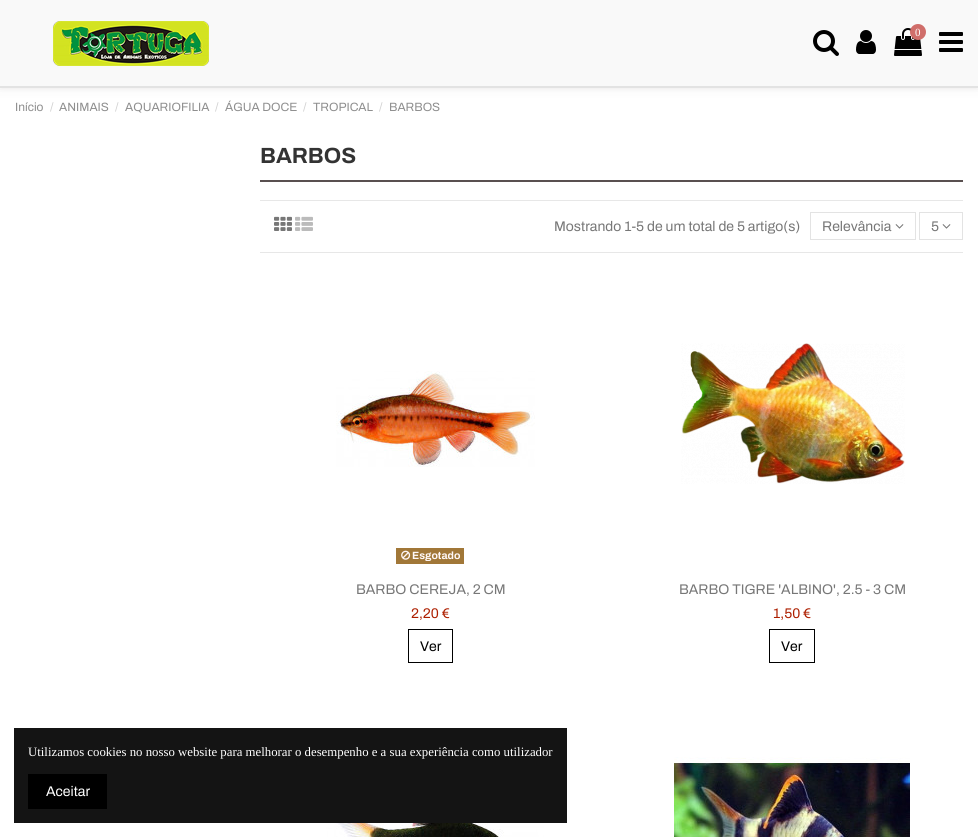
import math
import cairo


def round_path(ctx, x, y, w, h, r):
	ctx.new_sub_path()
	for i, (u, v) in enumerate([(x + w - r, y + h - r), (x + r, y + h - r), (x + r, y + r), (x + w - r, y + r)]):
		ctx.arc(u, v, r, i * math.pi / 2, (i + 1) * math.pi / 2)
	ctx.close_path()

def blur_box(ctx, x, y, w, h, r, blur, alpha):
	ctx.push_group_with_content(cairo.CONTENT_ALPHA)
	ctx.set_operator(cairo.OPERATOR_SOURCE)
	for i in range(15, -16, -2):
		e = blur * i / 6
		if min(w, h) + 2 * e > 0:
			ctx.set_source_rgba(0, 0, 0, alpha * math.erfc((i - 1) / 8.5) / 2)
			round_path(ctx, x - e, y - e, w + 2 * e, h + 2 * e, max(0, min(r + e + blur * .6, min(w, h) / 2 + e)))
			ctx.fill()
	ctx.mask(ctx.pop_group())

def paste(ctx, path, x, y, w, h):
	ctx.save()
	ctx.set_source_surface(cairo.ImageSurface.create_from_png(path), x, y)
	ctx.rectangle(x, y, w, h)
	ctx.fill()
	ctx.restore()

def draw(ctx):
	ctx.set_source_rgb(1, 1, 1)
	ctx.paint()
	ctx.set_source_rgb(0.239, 0.224, 0.224)
	blur_box(ctx, 0, -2, 978, 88, 0, 5.5, 0.17)
	ctx.set_source_rgb(0.973, 0.973, 0.973)
	ctx.rectangle(0, 0, 978, 86)
	ctx.fill()
	ctx.set_source_rgb(0.89, 0.89, 0.89)
	ctx.rectangle(0, 86, 978, 2)
	ctx.fill()
	paste(ctx, 'media/1.png', 53, 21, 156, 45)
	paste(ctx, 'media/2.png', 813, 30, 26, 26)
	paste(ctx, 'media/3.png', 856, 30, 20, 24)
	paste(ctx, 'media/4.png', 894, 28, 28, 28)
	ctx.set_source_rgb(0.816, 0.431, 0.416)
	ctx.arc(918, 32, 8, 0, 2 * math.pi)
	ctx.fill()
	ctx.select_font_face('Liberation Serif')
	ctx.set_font_size(11)
	ctx.set_source_rgb(1, 1, 1)
	ctx.move_to(915, 36)
	ctx.show_text('0')
	paste(ctx, 'media/5.png', 939, 32, 24, 20)
	ctx.select_font_face('Archivo')
	ctx.set_font_size(12)
	ctx.set_source_rgb(0.561, 0.561, 0.561)
	ctx.move_to(15, 111)
	ctx.show_text('Início')
	ctx.set_source_rgb(0.824, 0.824, 0.824)
	ctx.move_to(50, 111)
	ctx.show_text('/')
	ctx.set_source_rgb(0.561, 0.561, 0.561)
	ctx.move_to(59, 111)
	ctx.show_text('ANIMAIS')
	ctx.set_source_rgb(0.824, 0.824, 0.824)
	ctx.move_to(115, 111)
	ctx.show_text('/')
	ctx.set_source_rgb(0.561, 0.561, 0.561)
	ctx.move_to(125, 111)
	ctx.show_text('AQUARIOFILIA')
	ctx.set_source_rgb(0.824, 0.824, 0.824)
	ctx.move_to(215, 111)
	ctx.show_text('/')
	ctx.set_source_rgb(0.561, 0.561, 0.561)
	ctx.move_to(225, 111)
	ctx.show_text('ÁGUA DOCE')
	ctx.set_source_rgb(0.824, 0.824, 0.824)
	ctx.move_to(303, 111)
	ctx.show_text('/')
	ctx.set_source_rgb(0.561, 0.561, 0.561)
	ctx.move_to(313, 111)
	ctx.show_text('TROPICAL')
	ctx.set_source_rgb(0.824, 0.824, 0.824)
	ctx.move_to(379, 111)
	ctx.show_text('/')
	ctx.set_source_rgb(0.561, 0.561, 0.561)
	ctx.move_to(389, 111)
	ctx.show_text('BARBOS')
	ctx.set_source_rgb(0.349, 0.314, 0.314)
	ctx.rectangle(260, 180, 703, 2)
	ctx.fill()
	ctx.select_font_face('Archivo', cairo.FONT_SLANT_NORMAL, cairo.FONT_WEIGHT_BOLD)
	ctx.set_font_size(22)
	ctx.set_source_rgb(0.2, 0.2, 0.2)
	ctx.move_to(260, 163)
	ctx.show_text('BARBOS')
	ctx.set_source_rgb(0.906, 0.906, 0.906)
	ctx.rectangle(260, 200, 703, 1)
	ctx.fill()
	ctx.rectangle(260, 252, 703, 1)
	ctx.fill()
	paste(ctx, 'media/6.png', 274, 216, 18, 15)
	paste(ctx, 'media/7.png', 295, 216, 18, 15)
	ctx.select_font_face('Archivo')
	ctx.set_font_size(14)
	ctx.set_source_rgb(0.467, 0.467, 0.467)
	ctx.move_to(554, 231)
	ctx.show_text('Mostrando 1-5 de um total de 5 artigo(s)')
	ctx.rectangle(810.5, 212.5, 105, 27)
	ctx.set_source_rgb(0.89, 0.89, 0.89)
	ctx.set_line_width(1)
	ctx.stroke()
	ctx.set_source_rgb(0.467, 0.467, 0.467)
	ctx.move_to(822, 231)
	ctx.show_text('Relevância')
	paste(ctx, 'media/8.png', 895, 224, 9, 5)
	ctx.rectangle(919.5, 212.5, 43, 27)
	ctx.set_source_rgb(0.89, 0.89, 0.89)
	ctx.stroke()
	ctx.set_source_rgb(0.467, 0.467, 0.467)
	ctx.move_to(931, 231)
	ctx.show_text('5')
	paste(ctx, 'media/8.png', 942, 224, 9, 5)
	paste(ctx, 'media/9.png', 336, 371, 199, 96)
	ctx.set_source_rgb(0.631, 0.467, 0.22)
	ctx.rectangle(396, 548, 68, 16)
	ctx.fill()
	paste(ctx, 'media/10.png', 401, 550, 10, 10)
	ctx.select_font_face('Archivo', cairo.FONT_SLANT_NORMAL, cairo.FONT_WEIGHT_BOLD)
	ctx.set_font_size(10.5)
	ctx.set_source_rgb(1, 0.969, 0.969)
	ctx.move_to(412, 559)
	ctx.show_text('Esgotado')
	ctx.select_font_face('Archivo')
	ctx.set_font_size(14)
	ctx.set_source_rgb(0.467, 0.467, 0.467)
	ctx.move_to(356, 594)
	ctx.show_text('BARBO CEREJA, 2 CM')
	ctx.set_source_rgb(0.678, 0.122, 0)
	ctx.move_to(411, 618)
	ctx.show_text('2,20 €')
	ctx.rectangle(408.5, 629.5, 44, 33)
	ctx.set_source_rgb(0, 0, 0)
	ctx.stroke()
	ctx.move_to(420, 651)
	ctx.show_text('Ver')
	paste(ctx, 'media/11.png', 681, 343, 224, 141)
	ctx.set_source_rgb(0.467, 0.467, 0.467)
	ctx.move_to(679, 594)
	ctx.show_text('BARBO TIGRE \'ALBINO\', 2.5 - 3 CM')
	ctx.set_source_rgb(0.678, 0.122, 0)
	ctx.move_to(773, 618)
	ctx.show_text('1,50 €')
	ctx.rectangle(769.5, 629.5, 45, 33)
	ctx.set_source_rgb(0, 0, 0)
	ctx.stroke()
	ctx.move_to(781, 651)
	ctx.show_text('Ver')
	paste(ctx, 'media/12.png', 326, 823, 218, 14)
	paste(ctx, 'media/13.png', 674, 757, 236, 80)
	ctx.set_source_rgb(0.082, 0.082, 0.082)
	ctx.rectangle(14, 728, 553, 95)
	ctx.fill()
	ctx.select_font_face('Liberation Serif')
	ctx.set_font_size(12.8)
	ctx.set_source_rgb(1, 1, 1)
	ctx.move_to(28, 756)
	ctx.show_text('Utilizamos cookies no nosso website para melhorar o desempenho e a sua experiência como utilizador')
	ctx.set_source_rgb(0, 0, 0)
	ctx.rectangle(28, 774, 79, 35)
	ctx.fill()
	ctx.select_font_face('Archivo')
	ctx.set_font_size(14)
	ctx.set_source_rgb(1, 1, 1)
	ctx.move_to(46, 796)
	ctx.show_text('Aceitar')


surface = cairo.ImageSurface(cairo.FORMAT_RGB24, 978, 837)
ctx = cairo.Context(surface)
options = cairo.FontOptions()
options.set_hint_metrics(cairo.HINT_METRICS_OFF)
options.set_hint_style(cairo.HINT_STYLE_NONE)
ctx.set_font_options(options)
ctx.set_miter_limit(4)
draw(ctx)
surface.write_to_png('image.png')
